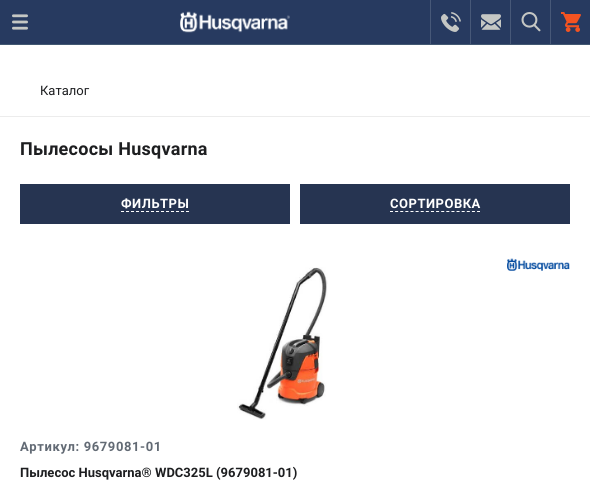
import math
import cairo


def write_spaced(ctx, x, y, s, letter, word):
	ctx.move_to(x, y)
	for ch in s:
		ctx.show_text(ch)
		ctx.rel_move_to(letter + word * (ch == ' '), 0)

def paste(ctx, path, x, y, w, h):
	ctx.save()
	ctx.set_source_surface(cairo.ImageSurface.create_from_png(path), x, y)
	ctx.rectangle(x, y, w, h)
	ctx.fill()
	ctx.restore()

def draw(ctx):
	ctx.set_source_rgb(1, 1, 1)
	ctx.paint()
	ctx.set_source_rgb(0.153, 0.227, 0.376)
	ctx.rectangle(0, 0, 590, 44)
	ctx.fill()
	ctx.set_source_rgb(0.259, 0.345, 0.447)
	ctx.rectangle(0, 44, 590, 1)
	ctx.fill()
	paste(ctx, 'media/1.png', 12, 14, 16, 16)
	paste(ctx, 'media/2.png', 180, 11, 110, 22)
	ctx.set_source_rgb(0.278, 0.345, 0.471)
	ctx.rectangle(430, 0, 1, 44)
	ctx.fill()
	paste(ctx, 'media/3.png', 441, 12, 20, 20)
	ctx.rectangle(470, 0, 1, 44)
	ctx.fill()
	paste(ctx, 'media/4.png', 481, 14, 20, 16)
	ctx.rectangle(510, 0, 1, 44)
	ctx.fill()
	paste(ctx, 'media/5.png', 521, 12, 20, 20)
	ctx.rectangle(550, 0, 1, 44)
	ctx.fill()
	paste(ctx, 'media/6.png', 561, 12, 20, 20)
	ctx.set_source_rgb(0.925, 0.925, 0.925)
	ctx.rectangle(0, 116, 590, 1)
	ctx.fill()
	ctx.select_font_face('Roboto')
	ctx.set_font_size(13)
	ctx.set_source_rgb(0.114, 0.118, 0.125)
	ctx.move_to(40, 95)
	ctx.show_text('Каталог')
	ctx.select_font_face('Roboto', cairo.FONT_SLANT_NORMAL, cairo.FONT_WEIGHT_BOLD)
	ctx.set_font_size(18)
	write_spaced(ctx, 20, 155, 'Пылесосы Husqvarna', 0.25, 0)
	ctx.set_source_rgb(0.149, 0.204, 0.318)
	ctx.rectangle(20, 184, 270, 40)
	ctx.fill()
	ctx.new_path()
	ctx.move_to(121, 211.5)
	ctx.line_to(189, 211.5)
	ctx.set_source_rgb(1, 1, 1)
	ctx.set_line_width(1)
	ctx.set_dash([3, 2])
	ctx.stroke()
	ctx.set_font_size(13)
	write_spaced(ctx, 121, 208, 'ФИЛЬТРЫ', 0.5, 0)
	ctx.set_source_rgb(0.149, 0.204, 0.318)
	ctx.rectangle(300, 184, 270, 40)
	ctx.fill()
	ctx.new_path()
	ctx.move_to(390, 211.5)
	ctx.line_to(480, 211.5)
	ctx.set_source_rgb(1, 1, 1)
	ctx.set_dash([3, 2.12])
	ctx.stroke()
	write_spaced(ctx, 390, 208, 'СОРТИРОВКА', 0.5, 0)
	paste(ctx, 'media/7.png', 507, 258, 63, 13)
	paste(ctx, 'media/8.png', 237, 267, 91, 153)
	ctx.set_source_rgb(0.384, 0.416, 0.455)
	write_spaced(ctx, 20, 451, 'Артикул: 9679081-01', 0.6, 0)
	ctx.set_source_rgb(0.114, 0.118, 0.125)
	ctx.move_to(20, 477)
	ctx.show_text('Пылесос Husqvarna® WDC325L (9679081-01)')


surface = cairo.ImageSurface(cairo.FORMAT_RGB24, 590, 503)
ctx = cairo.Context(surface)
options = cairo.FontOptions()
options.set_hint_metrics(cairo.HINT_METRICS_OFF)
options.set_hint_style(cairo.HINT_STYLE_NONE)
ctx.set_font_options(options)
ctx.set_miter_limit(4)
draw(ctx)
surface.write_to_png('image.png')
